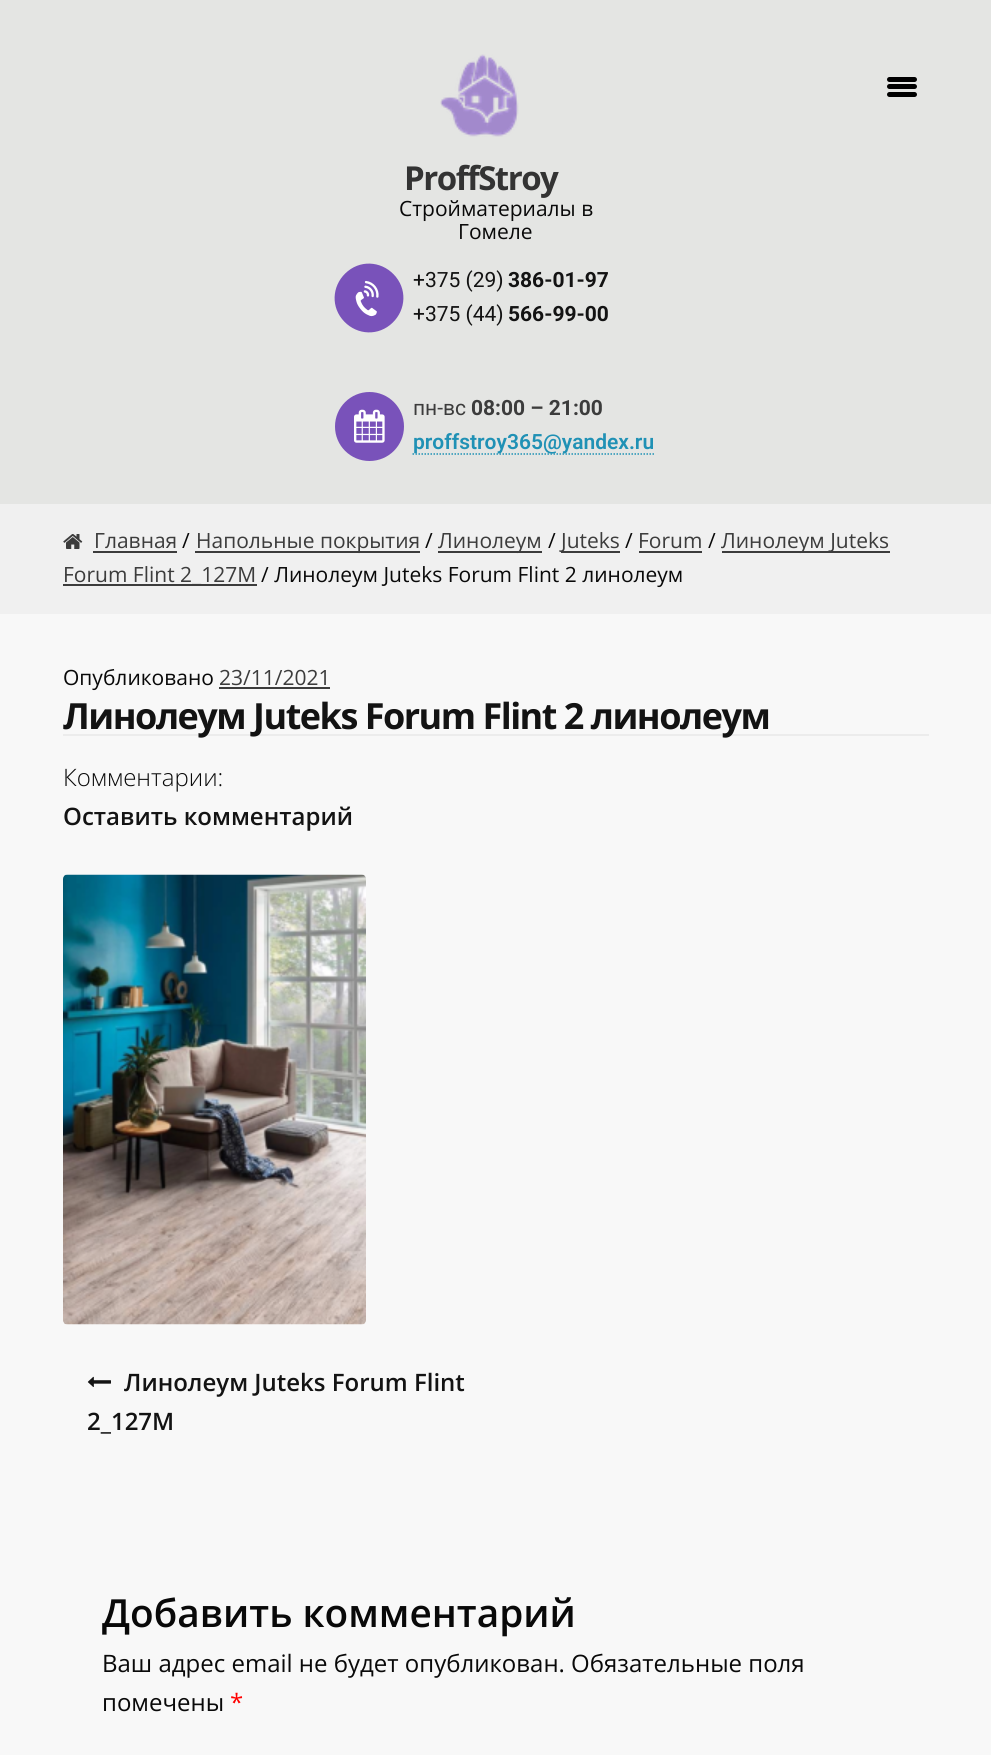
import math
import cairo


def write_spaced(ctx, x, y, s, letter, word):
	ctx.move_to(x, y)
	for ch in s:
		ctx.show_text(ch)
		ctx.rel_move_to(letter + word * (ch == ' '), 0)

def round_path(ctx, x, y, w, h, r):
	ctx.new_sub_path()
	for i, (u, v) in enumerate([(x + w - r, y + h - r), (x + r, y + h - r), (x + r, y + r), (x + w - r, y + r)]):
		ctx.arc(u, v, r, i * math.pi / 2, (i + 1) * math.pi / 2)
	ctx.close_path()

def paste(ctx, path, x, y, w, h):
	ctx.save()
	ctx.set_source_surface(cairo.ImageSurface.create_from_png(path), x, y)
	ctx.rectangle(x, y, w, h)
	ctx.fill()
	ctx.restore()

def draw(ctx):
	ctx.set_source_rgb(0.969, 0.969, 0.969)
	ctx.paint()
	ctx.set_source_rgb(0.894, 0.898, 0.89)
	ctx.rectangle(0, 0, 991, 504)
	ctx.fill()
	ctx.set_source_rgb(0, 0, 0)
	round_path(ctx, 887, 77, 30, 5, 2.5)
	ctx.fill()
	round_path(ctx, 887, 84, 30, 5, 2.5)
	ctx.fill()
	round_path(ctx, 887, 92, 30, 5, 2.5)
	ctx.fill()
	paste(ctx, 'media/1.png', 440, 54, 79, 83)
	ctx.select_font_face('Open Sans', cairo.FONT_SLANT_NORMAL, cairo.FONT_WEIGHT_BOLD)
	ctx.set_font_size(33)
	ctx.set_source_rgb(0.2, 0.2, 0.2)
	write_spaced(ctx, 404, 190, 'ProffStroy', -1.5, 0)
	ctx.select_font_face('Open Sans')
	ctx.set_font_size(21)
	ctx.set_source_rgb(0.039, 0.039, 0.039)
	ctx.move_to(399, 216)
	ctx.show_text('Стройматериалы в')
	ctx.move_to(458, 239)
	ctx.show_text('Гомеле')
	ctx.set_source_rgb(0.475, 0.322, 0.729)
	ctx.new_path()
	ctx.move_to(348, 271)
	ctx.curve_to(363, 259, 384, 262, 396, 277)
	ctx.curve_to(408, 292, 405, 313, 390, 325)
	ctx.curve_to(375, 337, 354, 334, 342, 319)
	ctx.curve_to(330, 304, 333, 283, 348, 271)
	ctx.close_path()
	ctx.fill()
	paste(ctx, 'media/2.png', 355, 280, 24, 37)
	ctx.select_font_face('Roboto')
	ctx.set_source_rgb(0.078, 0.078, 0.078)
	ctx.move_to(413, 287)
	ctx.show_text('+375 (29)')
	ctx.select_font_face('Roboto', cairo.FONT_SLANT_NORMAL, cairo.FONT_WEIGHT_BOLD)
	ctx.move_to(508, 287)
	ctx.show_text('386-01-97')
	ctx.select_font_face('Roboto')
	ctx.move_to(413, 321)
	ctx.show_text('+375 (44)')
	ctx.select_font_face('Roboto', cairo.FONT_SLANT_NORMAL, cairo.FONT_WEIGHT_BOLD)
	ctx.move_to(508, 321)
	ctx.show_text('566-99-00')
	ctx.set_source_rgb(0.475, 0.322, 0.729)
	ctx.new_path()
	ctx.arc(369.5, 426.5, 34.5, 0, 2 * math.pi)
	ctx.fill()
	paste(ctx, 'media/3.png', 354, 409, 31, 34)
	ctx.select_font_face('Roboto')
	ctx.set_source_rgb(0.235, 0.235, 0.235)
	ctx.move_to(413, 415)
	ctx.show_text('пн-вс')
	ctx.select_font_face('Roboto', cairo.FONT_SLANT_NORMAL, cairo.FONT_WEIGHT_BOLD)
	ctx.move_to(471, 415)
	ctx.show_text('08:00 – 21:00')
	ctx.new_path()
	ctx.move_to(412.5, 454)
	ctx.line_to(654, 454)
	ctx.set_source_rgb(0.125, 0.569, 0.71)
	ctx.set_line_width(1.5)
	ctx.set_dash([1.5, 1.5])
	ctx.stroke()
	ctx.select_font_face('Roboto SemiBold')
	ctx.move_to(413, 449)
	ctx.show_text('proffstroy365@yandex.ru')
	ctx.set_source_rgb(0.941, 0.941, 0.941)
	ctx.rectangle(0, 504, 991, 110)
	ctx.fill()
	paste(ctx, 'media/4.png', 63, 534, 20, 15)
	ctx.select_font_face('Open Sans')
	ctx.set_source_rgb(0.235, 0.235, 0.235)
	ctx.move_to(94, 548)
	ctx.show_text('Главная')
	ctx.rectangle(93, 551, 84, 2)
	ctx.fill()
	ctx.set_source_rgb(0.039, 0.039, 0.039)
	ctx.move_to(182, 548)
	ctx.show_text('/')
	ctx.set_source_rgb(0.235, 0.235, 0.235)
	ctx.rectangle(195, 551, 225, 2)
	ctx.fill()
	ctx.move_to(196, 548)
	ctx.show_text('Напольные покрытия')
	ctx.set_source_rgb(0.039, 0.039, 0.039)
	ctx.move_to(425, 548)
	ctx.show_text('/')
	ctx.set_source_rgb(0.235, 0.235, 0.235)
	ctx.rectangle(438, 551, 104, 2)
	ctx.fill()
	ctx.move_to(438, 548)
	ctx.show_text('Линолеум')
	ctx.set_source_rgb(0.039, 0.039, 0.039)
	ctx.move_to(548, 548)
	ctx.show_text('/')
	ctx.set_source_rgb(0.235, 0.235, 0.235)
	ctx.rectangle(561, 551, 59, 2)
	ctx.fill()
	ctx.move_to(561, 548)
	ctx.show_text('Juteks')
	ctx.set_source_rgb(0.039, 0.039, 0.039)
	ctx.move_to(625, 548)
	ctx.show_text('/')
	ctx.set_source_rgb(0.235, 0.235, 0.235)
	ctx.move_to(638, 548)
	ctx.show_text('Forum')
	ctx.rectangle(639, 551, 63, 2)
	ctx.fill()
	ctx.set_source_rgb(0.039, 0.039, 0.039)
	ctx.move_to(708, 548)
	ctx.show_text('/')
	ctx.set_source_rgb(0.235, 0.235, 0.235)
	ctx.rectangle(722, 551, 168, 2)
	ctx.fill()
	ctx.move_to(721, 548)
	ctx.show_text('Линолеум Juteks')
	ctx.rectangle(63, 584, 194, 2)
	ctx.fill()
	ctx.move_to(63, 582)
	ctx.show_text('Forum Flint 2_127M')
	ctx.set_source_rgb(0.039, 0.039, 0.039)
	ctx.move_to(261, 582)
	ctx.show_text('/ Линолеум Juteks Forum Flint 2 линолеум')
	ctx.set_source_rgb(0.922, 0.922, 0.922)
	ctx.rectangle(63, 734, 866, 2)
	ctx.fill()
	ctx.set_source_rgb(0.039, 0.039, 0.039)
	ctx.move_to(63, 685)
	ctx.show_text('Опубликовано')
	ctx.set_source_rgb(0.235, 0.235, 0.235)
	ctx.move_to(219, 685)
	ctx.show_text('23/11/2021')
	ctx.rectangle(219, 687, 111, 2)
	ctx.fill()
	ctx.select_font_face('Open Sans', cairo.FONT_SLANT_NORMAL, cairo.FONT_WEIGHT_BOLD)
	ctx.set_font_size(36)
	ctx.set_source_rgb(0.078, 0.078, 0.078)
	write_spaced(ctx, 63, 729, 'Линолеум Juteks Forum Flint 2 линолеум', -1.5, 0)
	ctx.select_font_face('Open Sans Light')
	ctx.set_font_size(24)
	ctx.set_source_rgb(0.039, 0.039, 0.039)
	ctx.move_to(63, 786)
	ctx.show_text('Комментарии:')
	ctx.select_font_face('Open Sans SemiBold')
	ctx.set_source_rgb(0.078, 0.078, 0.078)
	ctx.move_to(63, 825)
	ctx.show_text('Оставить комментарий')
	paste(ctx, 'media/5.png', 63, 874, 303, 451)
	paste(ctx, 'media/6.png', 87, 1376, 24, 11)
	ctx.move_to(124, 1391)
	ctx.show_text('Линолеум Juteks Forum Flint')
	ctx.move_to(87, 1430)
	ctx.show_text('2_127M')
	ctx.set_font_size(38.75)
	ctx.set_source_rgb(0.039, 0.039, 0.039)
	ctx.move_to(102, 1627)
	ctx.show_text('Добавить комментарий')
	ctx.select_font_face('Open Sans')
	ctx.set_font_size(24)
	ctx.move_to(102, 1672)
	ctx.show_text('Ваш адрес email не будет опубликован. Обязательные поля')
	ctx.move_to(102, 1711)
	ctx.show_text('помечены')
	ctx.set_source_rgb(1, 0, 0)
	ctx.move_to(230, 1711)
	ctx.show_text('*')


surface = cairo.ImageSurface(cairo.FORMAT_RGB24, 991, 1755)
ctx = cairo.Context(surface)
options = cairo.FontOptions()
options.set_hint_metrics(cairo.HINT_METRICS_OFF)
options.set_hint_style(cairo.HINT_STYLE_NONE)
ctx.set_font_options(options)
ctx.set_miter_limit(4)
draw(ctx)
surface.write_to_png('image.png')
